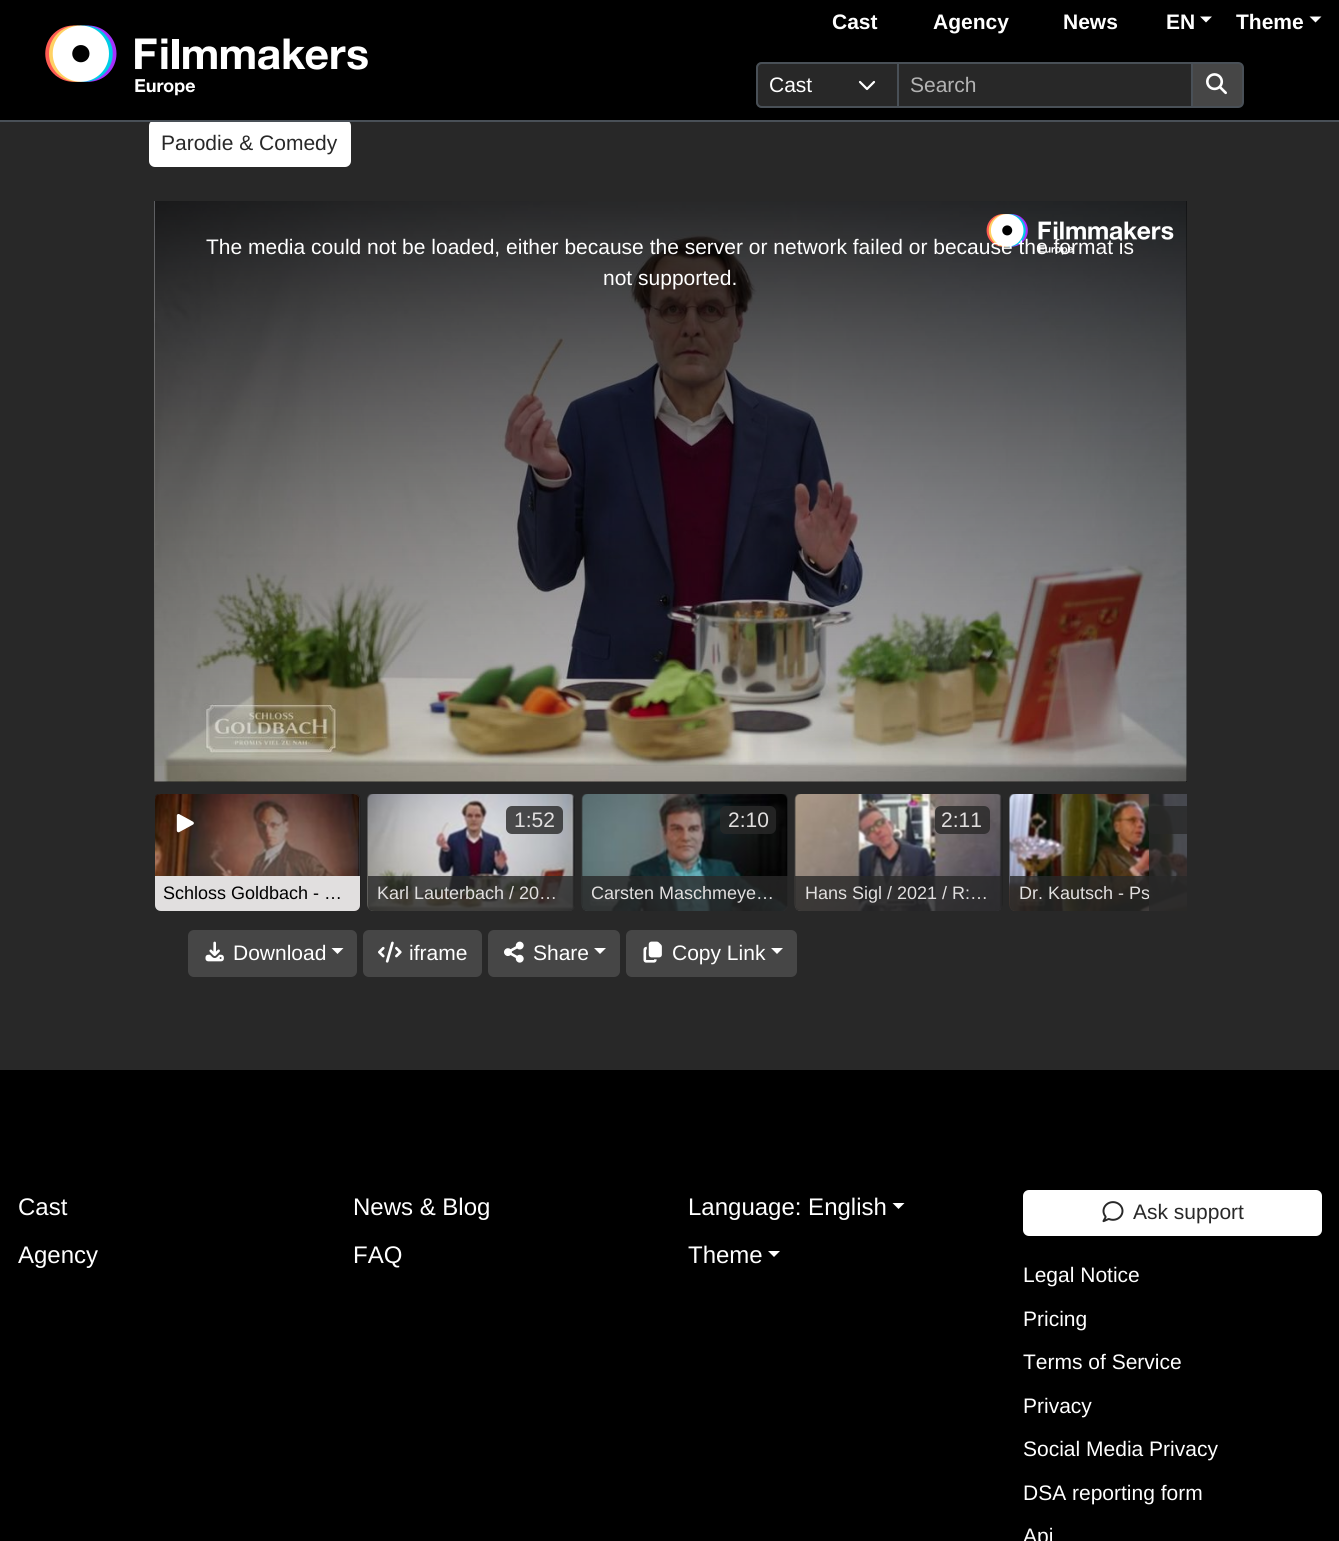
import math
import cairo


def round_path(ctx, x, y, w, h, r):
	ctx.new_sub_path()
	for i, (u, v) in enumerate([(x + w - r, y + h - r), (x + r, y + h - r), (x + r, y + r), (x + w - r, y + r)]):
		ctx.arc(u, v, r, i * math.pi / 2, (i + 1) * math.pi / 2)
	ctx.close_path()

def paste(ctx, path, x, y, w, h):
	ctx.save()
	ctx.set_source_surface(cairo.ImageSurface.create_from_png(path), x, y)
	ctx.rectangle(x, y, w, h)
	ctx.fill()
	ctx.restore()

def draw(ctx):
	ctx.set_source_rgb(0.157, 0.157, 0.157)
	ctx.paint()
	ctx.set_source_rgb(0, 0, 0)
	ctx.rectangle(0, 0, 1339, 120)
	ctx.fill()
	ctx.set_source_rgb(1, 1, 1)
	round_path(ctx, 150, 121, 200, 45, 5)
	ctx.fill_preserve()
	ctx.stroke()
	ctx.set_source_rgb(0.286, 0.314, 0.341)
	ctx.rectangle(0, 120, 1339, 2)
	ctx.fill()
	paste(ctx, 'media/1.png', 45, 25, 323, 71)
	ctx.select_font_face('Liberation Sans', cairo.FONT_SLANT_NORMAL, cairo.FONT_WEIGHT_BOLD)
	ctx.set_font_size(21)
	ctx.set_source_rgb(1, 1, 1)
	for x, y, s in [
		(832, 29, 'Cast'),
		(933, 29, 'Agency'),
		(1063, 29, 'News'),
		(1166, 29, 'EN'),
	]:
		ctx.move_to(x, y)
		ctx.show_text(s)
	ctx.new_path()
	ctx.move_to(1200, 16.5)
	ctx.line_to(1212, 16.5)
	ctx.line_to(1206, 22.5)
	ctx.close_path()
	ctx.fill()
	ctx.move_to(1236, 29)
	ctx.show_text('Theme')
	ctx.new_path()
	ctx.move_to(1309.5, 16.5)
	ctx.line_to(1321.5, 16.5)
	ctx.line_to(1315.5, 22.5)
	ctx.close_path()
	ctx.fill()
	ctx.set_source_rgb(0.157, 0.157, 0.157)
	ctx.new_path()
	ctx.move_to(762, 62)
	ctx.line_to(899, 62)
	ctx.line_to(899, 108)
	ctx.line_to(762, 108)
	ctx.curve_to(758.5, 108, 756, 105.5, 756, 102)
	ctx.line_to(756, 68)
	ctx.curve_to(756, 64.5, 758.5, 62, 762, 62)
	ctx.close_path()
	ctx.fill()
	ctx.new_path()
	ctx.move_to(860, 82)
	ctx.line_to(867, 89)
	ctx.line_to(874, 82)
	ctx.set_source_rgb(1, 1, 1)
	ctx.set_line_width(2.2)
	ctx.set_line_cap(cairo.LINE_CAP_ROUND)
	ctx.set_line_join(cairo.LINE_JOIN_ROUND)
	ctx.stroke()
	ctx.new_path()
	ctx.move_to(762, 63)
	ctx.line_to(898, 63)
	ctx.line_to(898, 107)
	ctx.line_to(762, 107)
	ctx.curve_to(759, 107, 757, 105, 757, 102)
	ctx.line_to(757, 68)
	ctx.curve_to(757, 65, 759, 63, 762, 63)
	ctx.close_path()
	ctx.set_source_rgb(0.286, 0.314, 0.341)
	ctx.set_line_width(2)
	ctx.set_line_cap(cairo.LINE_CAP_BUTT)
	ctx.set_line_join(cairo.LINE_JOIN_MITER)
	ctx.stroke()
	ctx.save()
	ctx.rectangle(770, 69, 73, 32)
	ctx.clip()
	ctx.select_font_face('Liberation Sans')
	ctx.set_source_rgb(1, 1, 1)
	ctx.move_to(769, 92)
	ctx.show_text('Cast')
	ctx.restore()
	ctx.set_source_rgb(0.157, 0.157, 0.157)
	ctx.rectangle(898, 63, 294, 44)
	ctx.fill_preserve()
	ctx.set_source_rgb(0.286, 0.314, 0.341)
	ctx.stroke()
	ctx.select_font_face('Liberation Sans')
	ctx.set_source_rgb(0.702, 0.702, 0.702)
	ctx.move_to(910, 92)
	ctx.show_text('Search')
	ctx.set_source_rgb(0.275, 0.275, 0.275)
	ctx.new_path()
	ctx.move_to(1192, 63)
	ctx.line_to(1238, 63)
	ctx.curve_to(1241, 63, 1243, 65, 1243, 68)
	ctx.line_to(1243, 102)
	ctx.curve_to(1243, 105, 1241, 107, 1238, 107)
	ctx.line_to(1192, 107)
	ctx.close_path()
	ctx.fill_preserve()
	ctx.set_source_rgb(0.286, 0.314, 0.341)
	ctx.stroke()
	paste(ctx, 'media/2.png', 1206, 73, 21, 22)
	ctx.set_source_rgb(0.157, 0.157, 0.157)
	ctx.move_to(161, 150)
	ctx.show_text('Parodie & Comedy')
	ctx.set_source_rgb(0, 0, 0)
	ctx.rectangle(155, 201, 1032, 581)
	ctx.fill()
	paste(ctx, 'media/3.png', 154, 201, 1033, 581)
	paste(ctx, 'media/4.png', 154, 201, 1033, 581)
	gradient = cairo.LinearGradient(671, 201, 671, 782)
	gradient.add_color_stop_rgba(0, 0, 0, 0, 0.8)
	gradient.add_color_stop_rgba(1, 0, 0, 0, 0)
	ctx.set_source(gradient)
	ctx.rectangle(155, 201, 1032, 565)
	ctx.fill()
	paste(ctx, 'media/5.png', 986, 214, 188, 41)
	ctx.set_source_rgb(1, 1, 1)
	ctx.move_to(206, 254)
	ctx.show_text('The media could not be loaded, either because the server or network failed or because the format is')
	ctx.move_to(603, 285)
	ctx.show_text('not supported.')
	ctx.set_source_rgb(0.365, 0.412, 0.455)
	round_path(ctx, 155, 794, 205, 117, 6)
	ctx.fill()
	paste(ctx, 'media/6.png', 155, 794, 206, 117)
	paste(ctx, 'media/7.png', 176, 814, 18, 19)
	ctx.set_source_rgb(0.882, 0.875, 0.875)
	ctx.new_path()
	ctx.move_to(155, 876)
	ctx.line_to(360, 876)
	ctx.line_to(360, 905)
	ctx.curve_to(360, 908.5, 357.5, 911, 354, 911)
	ctx.line_to(161, 911)
	ctx.curve_to(157.5, 911, 155, 908.5, 155, 905)
	ctx.close_path()
	ctx.fill()
	ctx.set_font_size(18)
	ctx.set_source_rgb(0, 0, 0)
	ctx.move_to(163, 899)
	ctx.show_text('Schloss Goldbach - …')
	ctx.set_source_rgb(0.212, 0.216, 0.224)
	round_path(ctx, 368, 794, 207, 117, 6)
	ctx.fill()
	paste(ctx, 'media/8.png', 367, 794, 208, 117)
	ctx.set_source_rgba(0.157, 0.157, 0.157, 0.8)
	round_path(ctx, 506, 806, 57, 28, 6)
	ctx.fill()
	ctx.set_font_size(21)
	ctx.set_source_rgb(0.882, 0.875, 0.875)
	ctx.move_to(514, 827)
	ctx.show_text('1:52')
	ctx.set_source_rgba(0.157, 0.157, 0.157, 0.8)
	ctx.new_path()
	ctx.move_to(368, 876)
	ctx.line_to(575, 876)
	ctx.line_to(575, 905)
	ctx.curve_to(575, 908.5, 572.5, 911, 569, 911)
	ctx.line_to(374, 911)
	ctx.curve_to(370.5, 911, 368, 908.5, 368, 905)
	ctx.close_path()
	ctx.fill()
	ctx.set_font_size(18)
	ctx.set_source_rgb(0.882, 0.875, 0.875)
	ctx.move_to(377, 899)
	ctx.show_text('Karl Lauterbach / 20…')
	ctx.set_source_rgb(0.212, 0.216, 0.224)
	round_path(ctx, 582, 794, 206, 117, 6)
	ctx.fill()
	paste(ctx, 'media/9.png', 581, 794, 207, 117)
	ctx.set_source_rgba(0.157, 0.157, 0.157, 0.8)
	round_path(ctx, 720, 806, 56, 28, 6)
	ctx.fill()
	ctx.set_font_size(21)
	ctx.set_source_rgb(0.882, 0.875, 0.875)
	ctx.move_to(728, 827)
	ctx.show_text('2:10')
	ctx.set_source_rgba(0.157, 0.157, 0.157, 0.8)
	ctx.new_path()
	ctx.move_to(582, 876)
	ctx.line_to(788, 876)
	ctx.line_to(788, 905)
	ctx.curve_to(788, 908.5, 785.5, 911, 782, 911)
	ctx.line_to(588, 911)
	ctx.curve_to(584.5, 911, 582, 908.5, 582, 905)
	ctx.close_path()
	ctx.fill()
	ctx.set_font_size(18)
	ctx.set_source_rgb(0.882, 0.875, 0.875)
	ctx.move_to(591, 899)
	ctx.show_text('Carsten Maschmeye…')
	ctx.set_source_rgb(0.212, 0.216, 0.224)
	round_path(ctx, 795, 794, 207, 117, 6)
	ctx.fill()
	paste(ctx, 'media/10.png', 794, 794, 209, 117)
	ctx.set_source_rgba(0.157, 0.157, 0.157, 0.8)
	round_path(ctx, 935, 806, 55, 28, 6)
	ctx.fill()
	ctx.set_font_size(21)
	ctx.set_source_rgb(0.882, 0.875, 0.875)
	ctx.move_to(941, 827)
	ctx.show_text('2:11')
	ctx.set_source_rgba(0.157, 0.157, 0.157, 0.8)
	ctx.new_path()
	ctx.move_to(795, 876)
	ctx.line_to(1002, 876)
	ctx.line_to(1002, 905)
	ctx.curve_to(1002, 908.5, 999.5, 911, 996, 911)
	ctx.line_to(801, 911)
	ctx.curve_to(797.5, 911, 795, 908.5, 795, 905)
	ctx.close_path()
	ctx.fill()
	ctx.set_font_size(18)
	ctx.set_source_rgb(0.882, 0.875, 0.875)
	ctx.move_to(805, 899)
	ctx.show_text('Hans Sigl / 2021 / R:…')
	ctx.set_source_rgb(0.212, 0.216, 0.224)
	ctx.new_path()
	ctx.move_to(1016, 794)
	ctx.line_to(1187, 794)
	ctx.line_to(1187, 911)
	ctx.line_to(1016, 911)
	ctx.curve_to(1012.5, 911, 1010, 908.5, 1010, 905)
	ctx.line_to(1010, 800)
	ctx.curve_to(1010, 796.5, 1012.5, 794, 1016, 794)
	ctx.close_path()
	ctx.fill()
	paste(ctx, 'media/11.png', 1009, 794, 178, 117)
	ctx.set_source_rgba(0.157, 0.157, 0.157, 0.8)
	ctx.new_path()
	ctx.move_to(1154, 806)
	ctx.line_to(1187, 806)
	ctx.line_to(1187, 834)
	ctx.line_to(1154, 834)
	ctx.curve_to(1150.5, 834, 1148, 831.5, 1148, 828)
	ctx.line_to(1148, 812)
	ctx.curve_to(1148, 808.5, 1150.5, 806, 1154, 806)
	ctx.close_path()
	ctx.fill()
	ctx.new_path()
	ctx.move_to(1010, 876)
	ctx.line_to(1187, 876)
	ctx.line_to(1187, 911)
	ctx.line_to(1016, 911)
	ctx.curve_to(1012.5, 911, 1010, 908.5, 1010, 905)
	ctx.close_path()
	ctx.fill()
	ctx.set_source_rgb(0.882, 0.875, 0.875)
	ctx.move_to(1019, 899)
	ctx.show_text('Dr. Kautsch - Ps')
	ctx.set_source_rgba(0.157, 0.157, 0.157, 0.8)
	ctx.rectangle(1149, 794, 38, 117)
	ctx.fill()
	ctx.set_source_rgb(0.275, 0.275, 0.275)
	round_path(ctx, 189, 931, 167, 45, 5)
	ctx.fill_preserve()
	ctx.stroke()
	paste(ctx, 'media/12.png', 205, 941, 19, 21)
	ctx.set_font_size(21)
	ctx.set_source_rgb(1, 1, 1)
	ctx.move_to(233, 960)
	ctx.show_text('Download')
	ctx.new_path()
	ctx.move_to(331.5, 948)
	ctx.line_to(343.5, 948)
	ctx.line_to(337.5, 954)
	ctx.close_path()
	ctx.fill()
	ctx.set_source_rgb(0.275, 0.275, 0.275)
	round_path(ctx, 364, 931, 117, 45, 5)
	ctx.fill_preserve()
	ctx.stroke()
	paste(ctx, 'media/13.png', 378, 941, 24, 22)
	ctx.set_source_rgb(1, 1, 1)
	ctx.move_to(409, 960)
	ctx.show_text('iframe')
	ctx.set_source_rgb(0.275, 0.275, 0.275)
	round_path(ctx, 489, 931, 130, 45, 5)
	ctx.fill_preserve()
	ctx.stroke()
	paste(ctx, 'media/14.png', 504, 941, 20, 22)
	ctx.set_source_rgb(1, 1, 1)
	ctx.move_to(533, 960)
	ctx.show_text('Share')
	ctx.new_path()
	ctx.move_to(594, 948)
	ctx.line_to(606, 948)
	ctx.line_to(600, 954)
	ctx.close_path()
	ctx.fill()
	ctx.set_source_rgb(0.275, 0.275, 0.275)
	round_path(ctx, 627, 931, 169, 45, 5)
	ctx.fill_preserve()
	ctx.stroke()
	paste(ctx, 'media/15.png', 643, 941, 19, 22)
	ctx.set_source_rgb(1, 1, 1)
	ctx.move_to(672, 960)
	ctx.show_text('Copy Link')
	ctx.new_path()
	ctx.move_to(771, 948)
	ctx.line_to(783, 948)
	ctx.line_to(777, 954)
	ctx.close_path()
	ctx.fill()
	ctx.set_source_rgb(0, 0, 0)
	ctx.rectangle(0, 1070, 1339, 471)
	ctx.fill()
	ctx.set_font_size(24)
	ctx.set_source_rgb(1, 1, 1)
	for x, y, s in [
		(18, 1215, 'Cast'),
		(18, 1263, 'Agency'),
		(353, 1215, 'News & Blog'),
		(353, 1263, 'FAQ'),
		(688, 1215, 'Language: English'),
	]:
		ctx.move_to(x, y)
		ctx.show_text(s)
	ctx.new_path()
	ctx.move_to(892.5, 1203)
	ctx.line_to(904.5, 1203)
	ctx.line_to(898.5, 1209)
	ctx.close_path()
	ctx.fill()
	ctx.move_to(688, 1263)
	ctx.show_text('Theme')
	ctx.new_path()
	ctx.move_to(768, 1251)
	ctx.line_to(780, 1251)
	ctx.line_to(774, 1257)
	ctx.close_path()
	ctx.fill()
	round_path(ctx, 1024, 1191, 297, 44, 5)
	ctx.fill_preserve()
	ctx.stroke()
	paste(ctx, 'media/16.png', 1102, 1201, 22, 22)
	ctx.set_font_size(21)
	ctx.set_source_rgb(0.157, 0.157, 0.157)
	ctx.move_to(1133, 1219)
	ctx.show_text('Ask support')
	ctx.set_source_rgb(1, 1, 1)
	for x, y, s in [
		(1023, 1282, 'Legal Notice'),
		(1023, 1326, 'Pricing'),
		(1023, 1369, 'Terms of Service'),
		(1023, 1413, 'Privacy'),
		(1023, 1456, 'Social Media Privacy'),
		(1023, 1500, 'DSA reporting form'),
		(1023, 1543, 'Api'),
	]:
		ctx.move_to(x, y)
		ctx.show_text(s)


surface = cairo.ImageSurface(cairo.FORMAT_RGB24, 1339, 1541)
ctx = cairo.Context(surface)
options = cairo.FontOptions()
options.set_hint_metrics(cairo.HINT_METRICS_OFF)
options.set_hint_style(cairo.HINT_STYLE_NONE)
ctx.set_font_options(options)
ctx.set_miter_limit(4)
draw(ctx)
surface.write_to_png('image.png')
